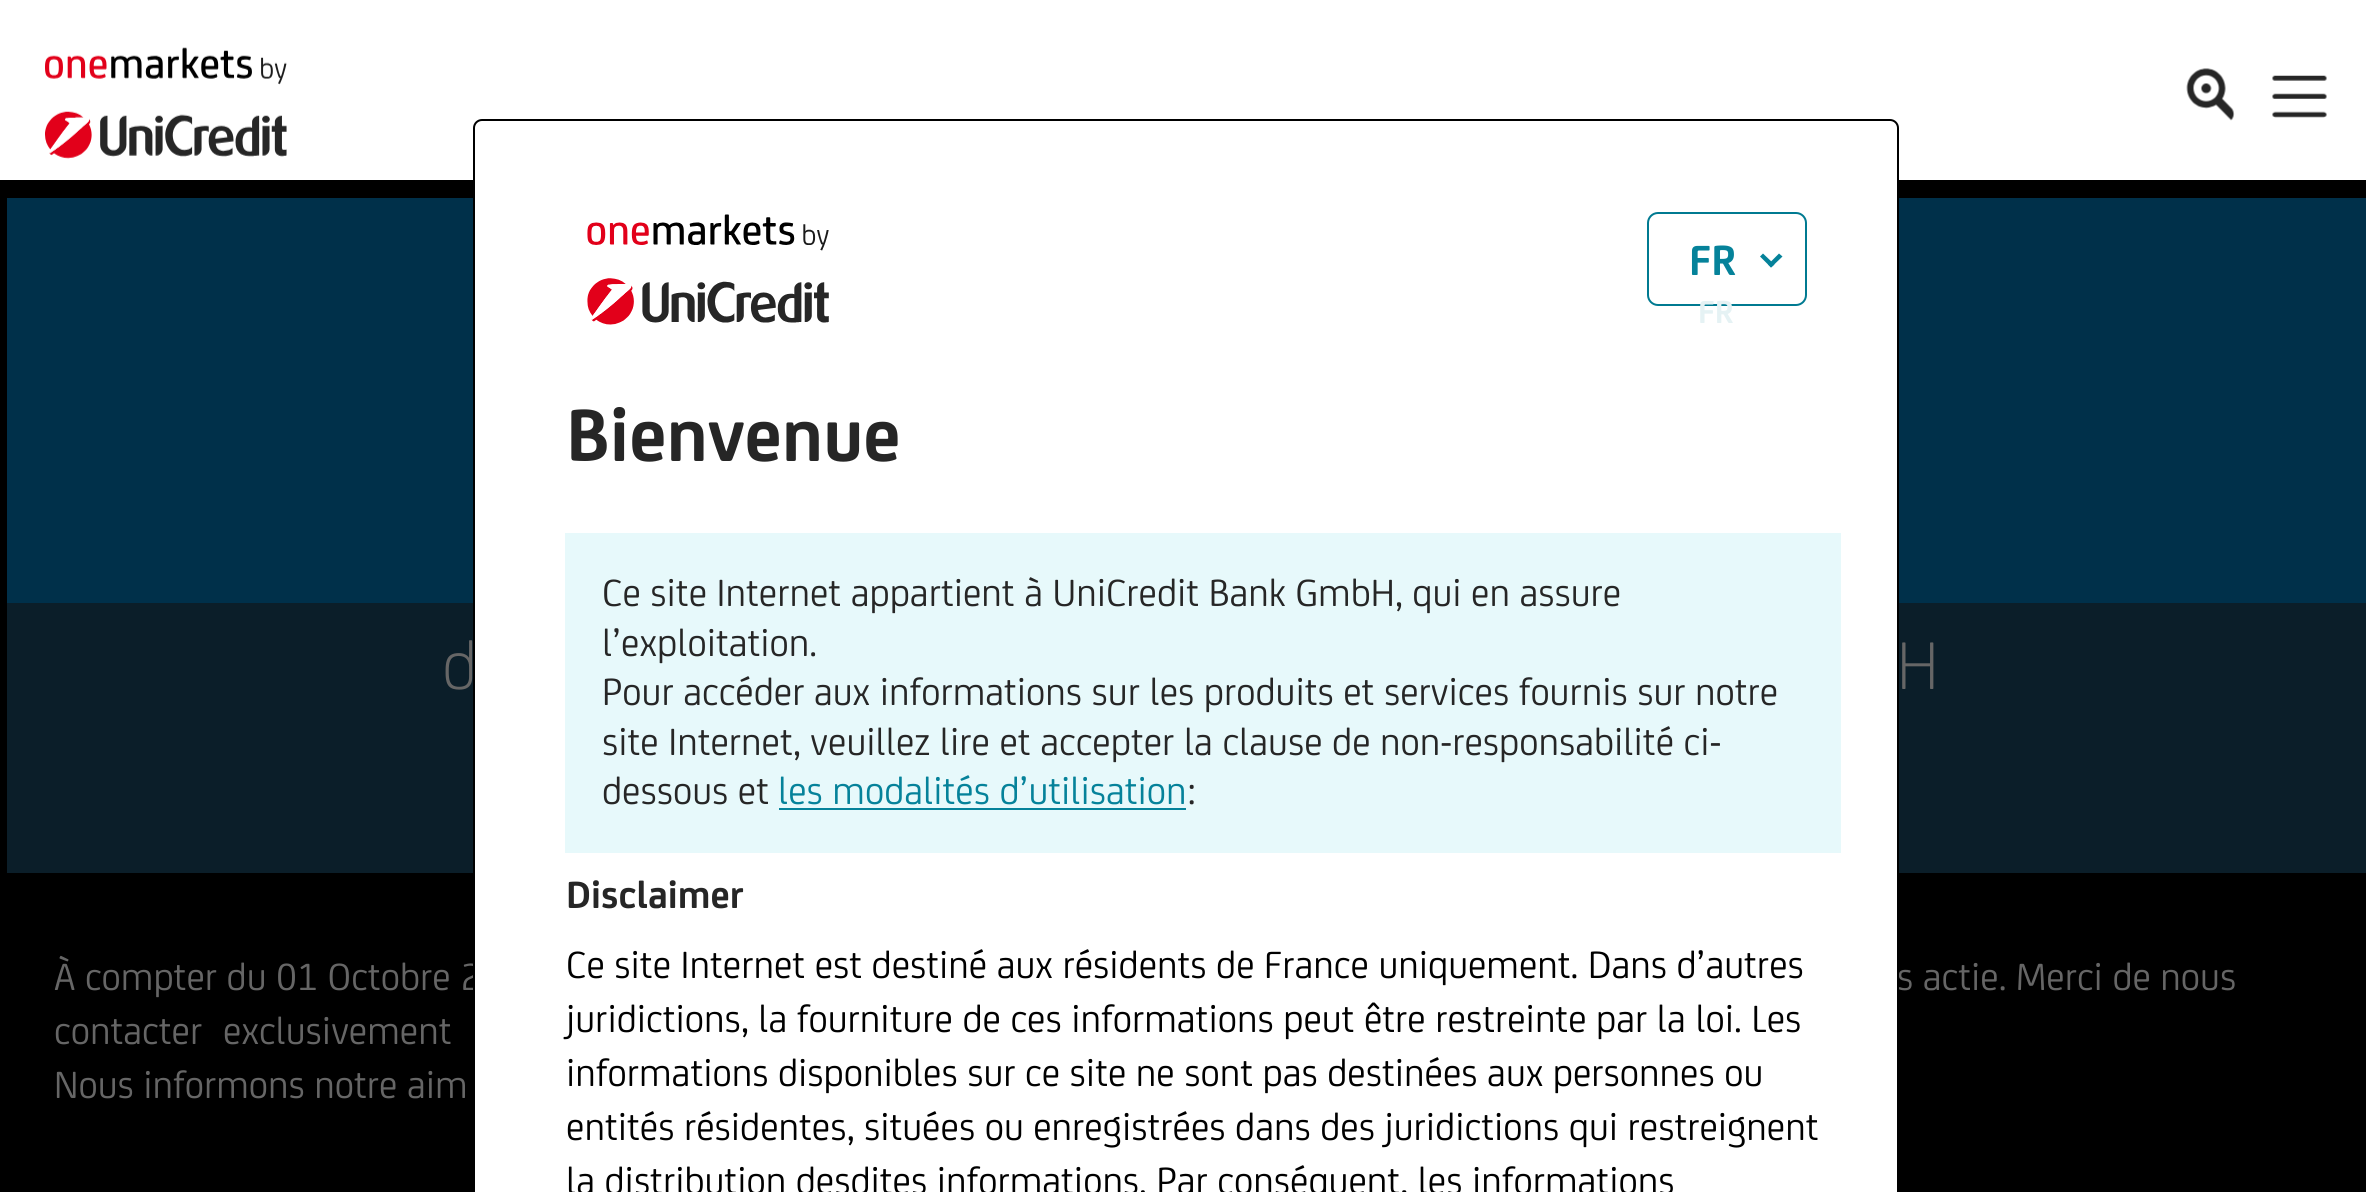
import math
import cairo


def round_path(ctx, x, y, w, h, r):
	ctx.new_sub_path()
	for i, (u, v) in enumerate([(x + w - r, y + h - r), (x + r, y + h - r), (x + r, y + r), (x + w - r, y + r)]):
		ctx.arc(u, v, r, i * math.pi / 2, (i + 1) * math.pi / 2)
	ctx.close_path()

def paste(ctx, path, x, y, w, h):
	ctx.save()
	ctx.set_source_surface(cairo.ImageSurface.create_from_png(path), x, y)
	ctx.rectangle(x, y, w, h)
	ctx.fill()
	ctx.restore()

def draw(ctx):
	ctx.set_source_rgb(0, 0, 0)
	ctx.paint()
	ctx.set_source_rgb(1, 1, 1)
	ctx.rectangle(0, 0, 2366, 180)
	ctx.fill()
	ctx.set_source_rgb(0, 0.188, 0.29)
	ctx.rectangle(7, 198, 2359, 675)
	ctx.fill()
	ctx.set_source_rgba(0.078, 0.078, 0.078, 0.6)
	ctx.rectangle(7, 603, 2359, 270)
	ctx.fill()
	ctx.select_font_face('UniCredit')
	ctx.set_font_size(40.5)
	ctx.set_source_rgb(0.4, 0.4, 0.4)
	ctx.move_to(54, 990)
	ctx.show_text('À compter du 01 Octobre 2')
	ctx.move_to(1897, 990)
	ctx.show_text('s actie. Merci de nous')
	round_path(ctx, 474, 120, 1424, 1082, 8)
	ctx.set_source_rgb(0, 0, 0)
	ctx.stroke()
	ctx.set_source_rgb(1, 1, 1)
	round_path(ctx, 475, 122, 1422, 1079, 9)
	ctx.fill()
	paste(ctx, 'media/1.png', 587, 214, 242, 111)
	round_path(ctx, 1648, 213, 158, 92, 10)
	ctx.set_source_rgb(0, 0.478, 0.569)
	ctx.stroke()
	ctx.select_font_face('UniCredit', cairo.FONT_SLANT_NORMAL, cairo.FONT_WEIGHT_BOLD)
	ctx.set_font_size(45)
	ctx.set_source_rgb(0.02, 0.51, 0.604)
	ctx.move_to(1689, 275)
	ctx.show_text('FR')
	ctx.new_path()
	ctx.move_to(1779, 253.5)
	ctx.line_to(1782.5, 256.5)
	ctx.line_to(1771, 267.5)
	ctx.line_to(1768, 264.5)
	ctx.close_path()
	ctx.fill()
	ctx.new_path()
	ctx.move_to(1763, 253.5)
	ctx.line_to(1774.5, 264.5)
	ctx.line_to(1771, 267.5)
	ctx.line_to(1760, 256.5)
	ctx.close_path()
	ctx.fill()
	ctx.set_font_size(34)
	ctx.set_source_rgb(0.898, 0.949, 0.957)
	ctx.move_to(1698, 323)
	ctx.show_text('FR')
	ctx.set_font_size(78.75)
	ctx.set_source_rgb(0.149, 0.149, 0.149)
	ctx.move_to(566, 461)
	ctx.show_text('Bienvenue')
	ctx.set_source_rgb(0.906, 0.973, 0.984)
	ctx.rectangle(565, 533, 1276, 320)
	ctx.fill()
	ctx.select_font_face('UniCredit')
	ctx.set_font_size(40.5)
	ctx.set_source_rgb(0.149, 0.149, 0.149)
	for x, y, s in [
		(602, 606, 'Ce site Internet appartient à UniCredit Bank GmbH, qui en assure'),
		(602, 656, 'l’exploitation.'),
		(602, 705, 'Pour accéder aux informations sur les produits et services fournis sur notre'),
		(602, 755, 'site Internet, veuillez lire et accepter la clause de non-responsabilité ci-'),
		(602, 804, 'dessous et'),
	]:
		ctx.move_to(x, y)
		ctx.show_text(s)
	ctx.set_source_rgb(0.02, 0.51, 0.604)
	ctx.move_to(778, 804)
	ctx.show_text('les modalités d’utilisation')
	ctx.rectangle(779, 808, 407, 2)
	ctx.fill()
	ctx.set_source_rgb(0.149, 0.149, 0.149)
	ctx.move_to(1187, 804)
	ctx.show_text(':')
	ctx.select_font_face('UniCredit', cairo.FONT_SLANT_NORMAL, cairo.FONT_WEIGHT_BOLD)
	ctx.move_to(566, 908)
	ctx.show_text('Disclaimer')
	ctx.select_font_face('UniCredit')
	ctx.set_source_rgb(0, 0, 0)
	for x, y, s in [
		(566, 978, 'Ce site Internet est destiné aux résidents de France uniquement. Dans d’autres'),
		(566, 1032, 'juridictions, la fourniture de ces informations peut être restreinte par la loi. Les'),
		(566, 1086, 'informations disponibles sur ce site ne sont pas destinées aux personnes ou'),
		(566, 1140, 'entités résidentes, situées ou enregistrées dans des juridictions qui restreignent'),
		(566, 1194, 'la distribution desdites informations. Par conséquent, les informations'),
	]:
		ctx.move_to(x, y)
		ctx.show_text(s)
	paste(ctx, 'media/2.png', 45, 47, 242, 112)
	paste(ctx, 'media/3.png', 2186, 68, 49, 53)
	paste(ctx, 'media/4.png', 2272, 75, 55, 43)
	ctx.select_font_face('UniCredit Light')
	ctx.set_font_size(72)
	ctx.set_source_rgb(0.4, 0.4, 0.4)
	ctx.move_to(442, 689)
	ctx.show_text('d')
	ctx.move_to(1897, 689)
	ctx.show_text('H')
	ctx.select_font_face('UniCredit')
	ctx.set_font_size(40.5)
	for x, y, s in [
		(54, 1044, 'contacter'),
		(223, 1044, 'exclusivement'),
		(54, 1098, 'Nous informons notre aim'),
	]:
		ctx.move_to(x, y)
		ctx.show_text(s)


surface = cairo.ImageSurface(cairo.FORMAT_RGB24, 2366, 1192)
ctx = cairo.Context(surface)
options = cairo.FontOptions()
options.set_hint_metrics(cairo.HINT_METRICS_OFF)
options.set_hint_style(cairo.HINT_STYLE_NONE)
ctx.set_font_options(options)
ctx.set_miter_limit(4)
draw(ctx)
surface.write_to_png('image.png')
